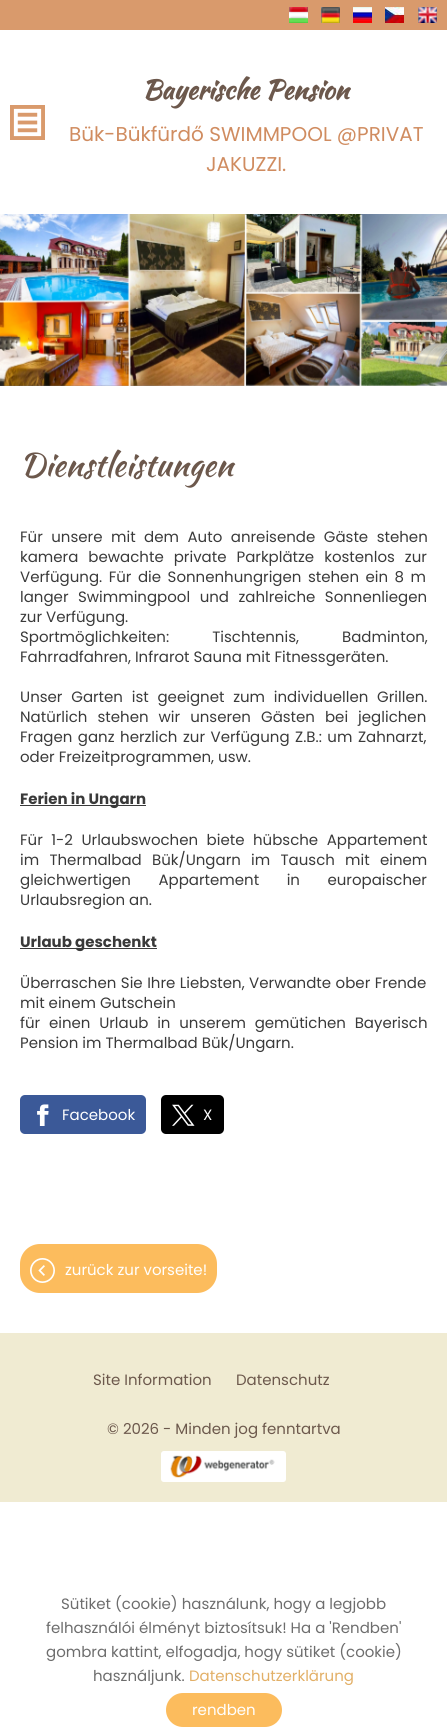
import math
import cairo


def write_spaced(ctx, x, y, s, letter, word):
	ctx.move_to(x, y)
	for ch in s:
		ctx.show_text(ch)
		ctx.rel_move_to(letter + word * (ch == ' '), 0)

def round_path(ctx, x, y, w, h, r):
	ctx.new_sub_path()
	for i, (u, v) in enumerate([(x + w - r, y + h - r), (x + r, y + h - r), (x + r, y + r), (x + w - r, y + r)]):
		ctx.arc(u, v, r, i * math.pi / 2, (i + 1) * math.pi / 2)
	ctx.close_path()

def paste(ctx, path, x, y, w, h):
	ctx.save()
	ctx.set_source_surface(cairo.ImageSurface.create_from_png(path), x, y)
	ctx.rectangle(x, y, w, h)
	ctx.fill()
	ctx.restore()

def draw(ctx):
	ctx.set_source_rgb(1, 1, 1)
	ctx.paint()
	ctx.set_source_rgb(0.851, 0.604, 0.424)
	ctx.rectangle(0, 0, 447, 30)
	ctx.fill()
	paste(ctx, 'media/1.png', 289, 7, 19, 16)
	paste(ctx, 'media/2.png', 321, 7, 19, 16)
	paste(ctx, 'media/3.png', 353, 7, 19, 16)
	paste(ctx, 'media/4.png', 385, 7, 19, 16)
	paste(ctx, 'media/5.png', 418, 7, 19, 16)
	paste(ctx, 'media/6.png', 10, 105, 35, 35)
	ctx.select_font_face('Kaushan Script', cairo.FONT_SLANT_NORMAL, cairo.FONT_WEIGHT_BOLD)
	ctx.set_font_size(26.5)
	ctx.set_source_rgb(0.424, 0.345, 0.298)
	ctx.move_to(142, 99)
	ctx.show_text('Bayerische Pension')
	ctx.select_font_face('Poppins')
	ctx.set_font_size(20)
	ctx.set_source_rgb(0.816, 0.549, 0.376)
	ctx.move_to(69, 141)
	ctx.show_text('Bük-Bükfürdő SWIMMPOOL @PRIVAT')
	ctx.move_to(206, 171)
	ctx.show_text('JAKUZZI.')
	paste(ctx, 'media/8.png', 0, 385, 447, 1)
	paste(ctx, 'media/7.png', 0, 214, 447, 172)
	ctx.select_font_face('Kaushan Script')
	ctx.set_font_size(32)
	ctx.set_source_rgb(0.424, 0.345, 0.298)
	ctx.move_to(20, 476)
	ctx.show_text('Dienstleistungen')
	ctx.select_font_face('Poppins')
	ctx.set_font_size(15)
	ctx.set_source_rgb(0.227, 0.227, 0.227)
	write_spaced(ctx, 20, 542, 'Für unsere mit dem Auto anreisende Gäste stehen', 0, 4.5)
	write_spaced(ctx, 20, 562, 'kamera bewachte private Parkplätze kostenlos zur', 0, 6)
	write_spaced(ctx, 20, 582, 'Verfügung. Für die Sonnenhungrigen stehen ein 8 m', 0, 2.5)
	write_spaced(ctx, 20, 602, 'langer Swimmingpool und zahlreiche Sonnenliegen', 0, 5.5)
	ctx.move_to(20, 622)
	ctx.show_text('zur Verfügung.')
	write_spaced(ctx, 20, 642, 'Sportmöglichkeiten: Tischtennis, Badminton,', 0, 39)
	ctx.move_to(20, 662)
	ctx.show_text('Fahrradfahren, Infrarot Sauna mit Fitnessgeräten.')
	write_spaced(ctx, 20, 702, 'Unser Garten ist geeignet zum individuellen Grillen.', 0, 4.75)
	write_spaced(ctx, 20, 722, 'Natürlich stehen wir unseren Gästen bei jeglichen', 0, 6)
	write_spaced(ctx, 20, 742, 'Fragen ganz herzlich zur Verfügung Z.B.: um Zahnarzt,', 0, 1.5)
	ctx.move_to(20, 762)
	ctx.show_text('oder Freizeitprogrammen, usw.')
	ctx.rectangle(20, 805, 126, 1)
	ctx.fill()
	ctx.select_font_face('Poppins', cairo.FONT_SLANT_NORMAL, cairo.FONT_WEIGHT_BOLD)
	ctx.move_to(20, 804)
	ctx.show_text('Ferien in Ungarn')
	ctx.select_font_face('Poppins')
	write_spaced(ctx, 20, 845, 'Für 1-2 Urlaubswochen biete hübsche Appartement', 0, 4.5)
	write_spaced(ctx, 20, 865, 'im Thermalbad Bük/Ungarn im Tausch mit einem', 0, 6.25)
	write_spaced(ctx, 20, 885, 'gleichwertigen Appartement in europaischer', 0, 23.5)
	ctx.move_to(20, 905)
	ctx.show_text('Urlaubsregion an.')
	ctx.rectangle(20, 948, 137, 1)
	ctx.fill()
	ctx.select_font_face('Poppins', cairo.FONT_SLANT_NORMAL, cairo.FONT_WEIGHT_BOLD)
	ctx.move_to(20, 947)
	ctx.show_text('Urlaub geschenkt')
	ctx.select_font_face('Poppins')
	write_spaced(ctx, 20, 988, 'Überraschen Sie Ihre Liebsten, Verwandte ober Frende', 0, 0.5)
	ctx.move_to(20, 1008)
	ctx.show_text('mit einem Gutschein')
	write_spaced(ctx, 20, 1028, 'für einen Urlaub in unserem gemütichen Bayerisch', 0, 4.75)
	ctx.move_to(20, 1048)
	ctx.show_text('Pension im Thermalbad Bük/Ungarn.')
	ctx.set_source_rgb(0.231, 0.349, 0.596)
	round_path(ctx, 20, 1095, 126, 39, 5)
	ctx.fill()
	paste(ctx, 'media/9.png', 37, 1104, 12, 22)
	ctx.set_source_rgb(1, 1, 1)
	ctx.move_to(62, 1120)
	ctx.show_text('Facebook')
	ctx.set_source_rgb(0, 0, 0)
	round_path(ctx, 161, 1095, 63, 39, 5)
	ctx.fill()
	paste(ctx, 'media/10.png', 172, 1104, 23, 22)
	ctx.set_source_rgb(1, 1, 1)
	ctx.move_to(203, 1120)
	ctx.show_text('X')
	ctx.set_source_rgb(0.988, 0.737, 0.365)
	round_path(ctx, 20, 1244, 197, 49, 20)
	ctx.fill()
	paste(ctx, 'media/11.png', 30, 1258, 25, 25)
	ctx.set_source_rgb(1, 1, 1)
	ctx.move_to(65, 1275)
	ctx.show_text('zurück zur vorseite!')
	ctx.set_source_rgb(0.941, 0.918, 0.824)
	ctx.rectangle(0, 1333, 447, 169)
	ctx.fill()
	ctx.set_source_rgb(0.424, 0.345, 0.298)
	for x, y, s in [
		(93, 1385, 'Site Information'),
		(236, 1385, 'Datenschutz'),
		(107, 1434, '© 2026 - Minden jog fenntartva'),
	]:
		ctx.move_to(x, y)
		ctx.show_text(s)
	paste(ctx, 'media/12.png', 161, 1451, 125, 31)
	ctx.set_source_rgb(0.427, 0.427, 0.427)
	for x, y, s in [
		(61, 1609, 'Sütiket (cookie) használunk, hogy a legjobb'),
		(46, 1633, 'felhasználói élményt biztosítsuk! Ha a \'Rendben\''),
		(46, 1657, 'gombra kattint, elfogadja, hogy sütiket (cookie)'),
		(93, 1681, 'használjunk.'),
	]:
		ctx.move_to(x, y)
		ctx.show_text(s)
	ctx.set_source_rgb(0.886, 0.686, 0.4)
	ctx.move_to(189, 1681)
	ctx.show_text('Datenschutzerklärung')
	ctx.set_source_rgb(0.988, 0.737, 0.365)
	round_path(ctx, 166, 1693, 116, 34, 17)
	ctx.fill()
	ctx.set_source_rgb(1, 1, 1)
	ctx.move_to(192, 1715)
	ctx.show_text('rendben')


surface = cairo.ImageSurface(cairo.FORMAT_RGB24, 447, 1735)
ctx = cairo.Context(surface)
options = cairo.FontOptions()
options.set_hint_metrics(cairo.HINT_METRICS_OFF)
options.set_hint_style(cairo.HINT_STYLE_NONE)
ctx.set_font_options(options)
ctx.set_miter_limit(4)
draw(ctx)
surface.write_to_png('image.png')
